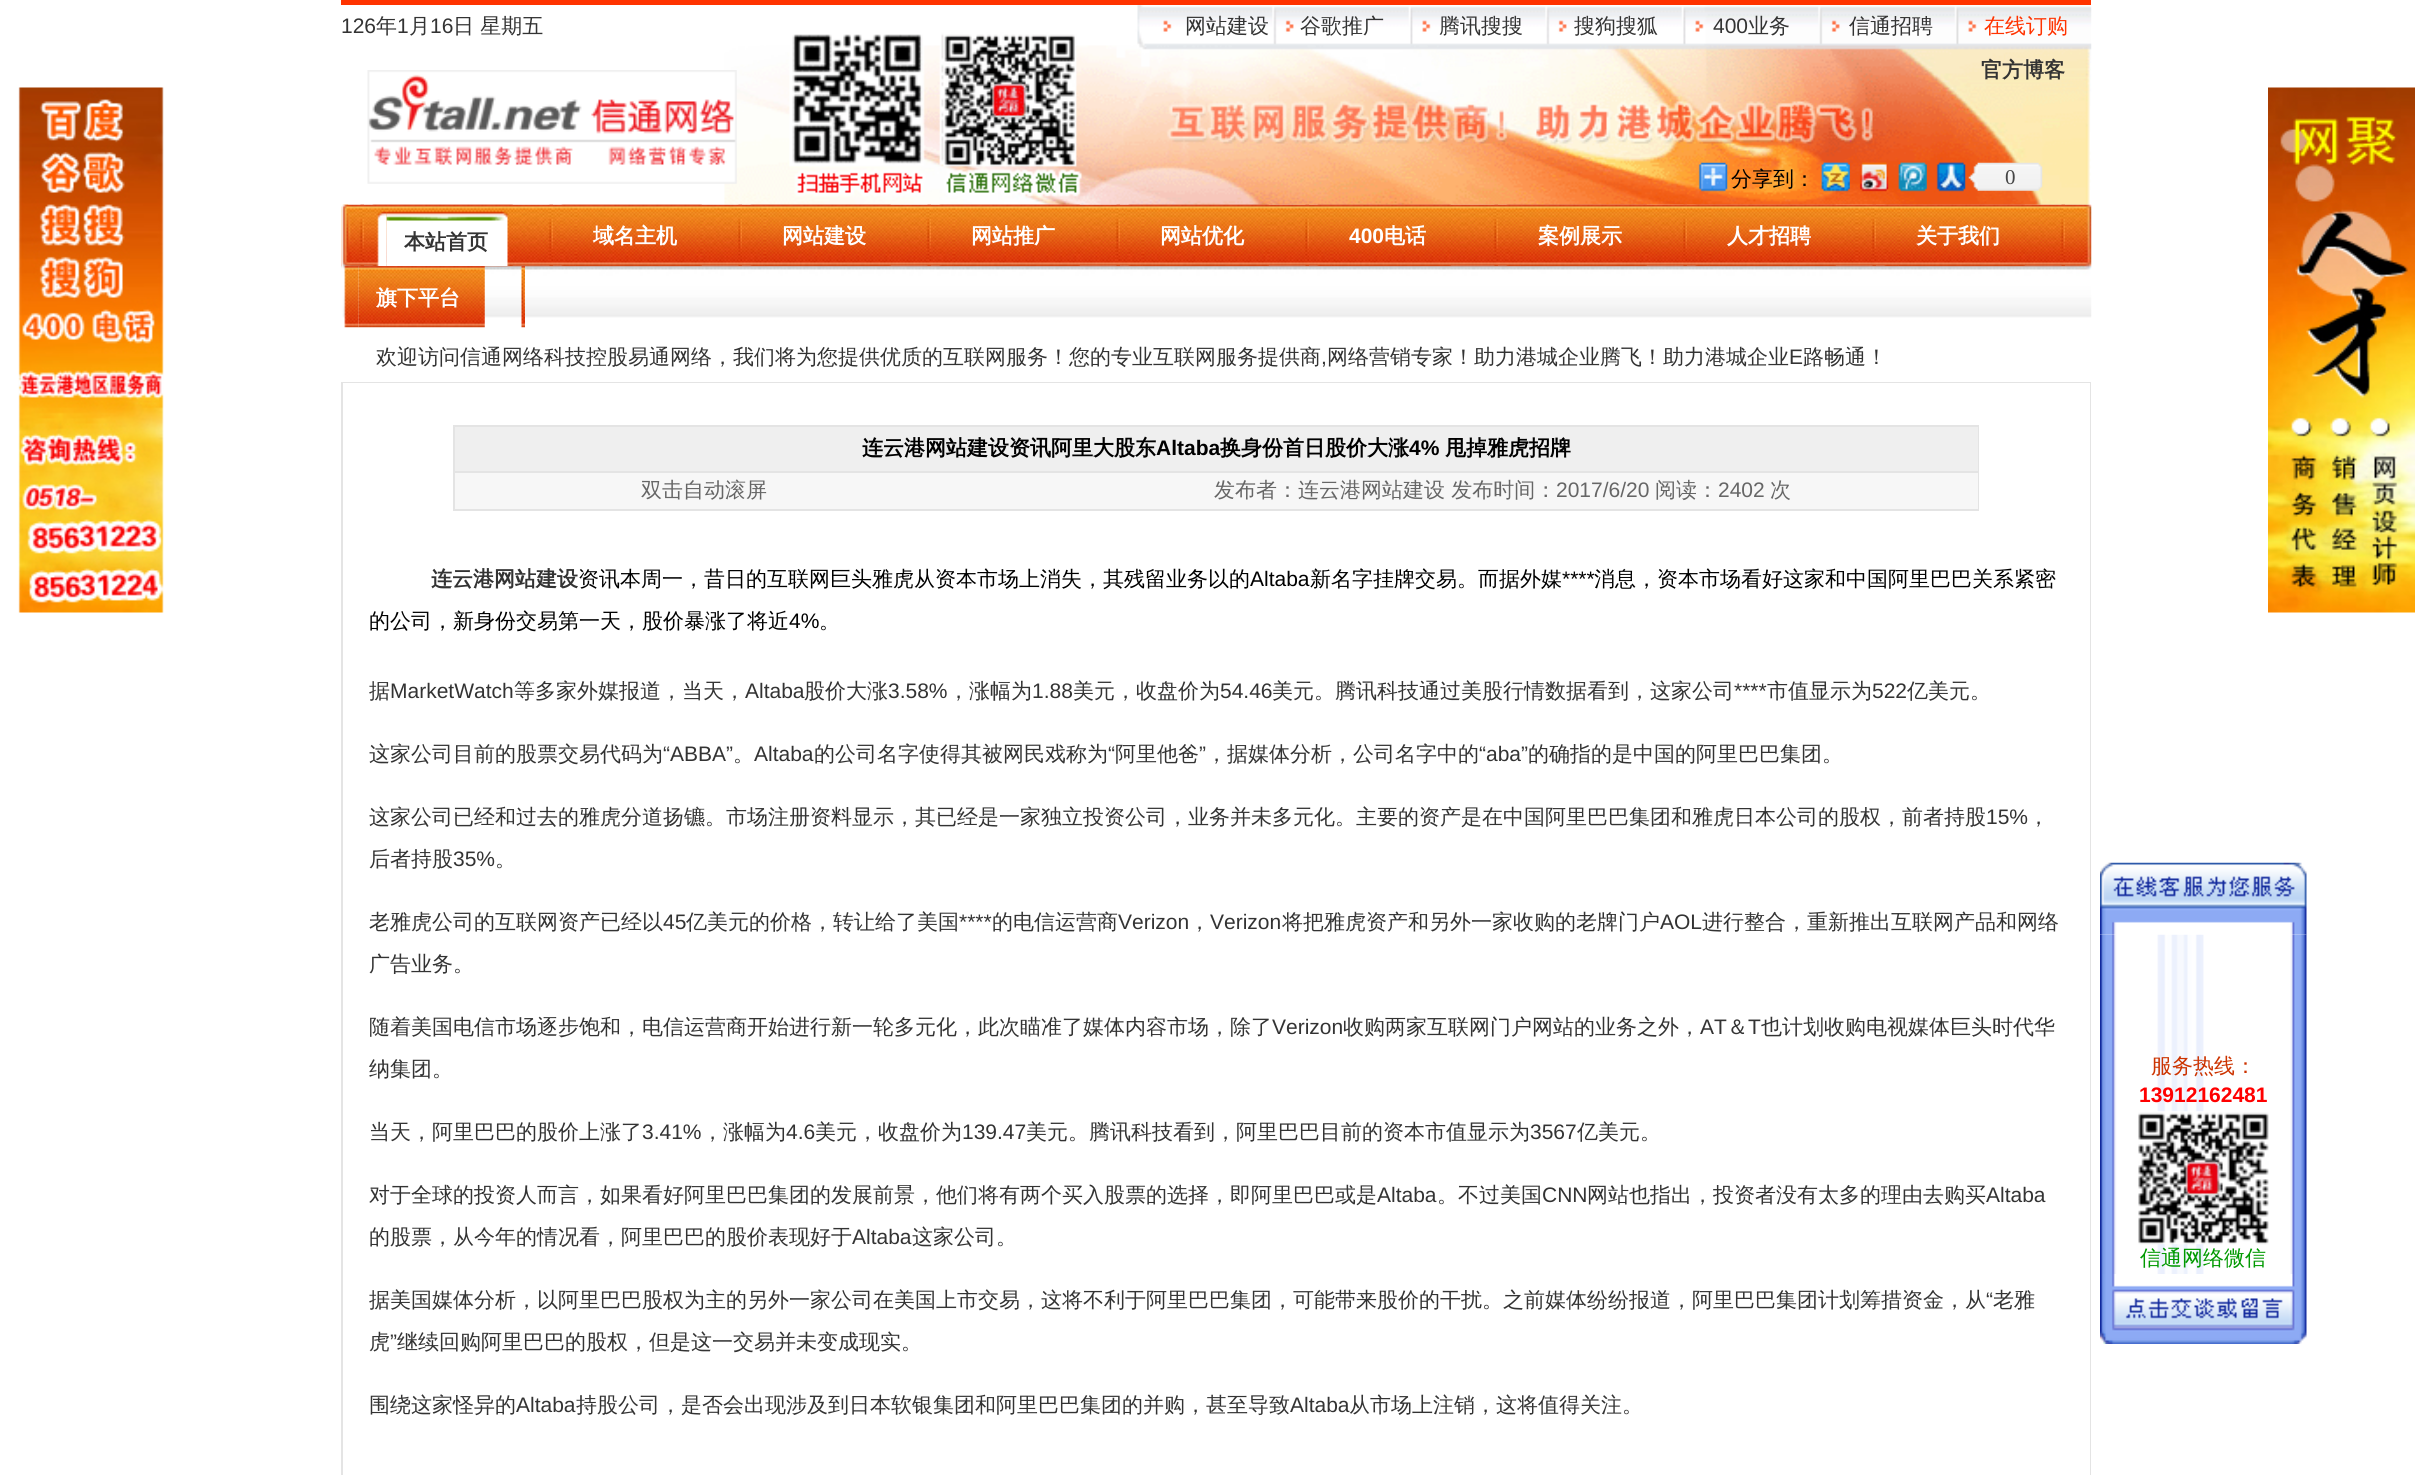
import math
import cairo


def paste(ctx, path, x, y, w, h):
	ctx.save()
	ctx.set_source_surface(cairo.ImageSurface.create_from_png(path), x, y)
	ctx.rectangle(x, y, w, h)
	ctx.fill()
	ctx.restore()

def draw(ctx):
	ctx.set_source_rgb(1, 1, 1)
	ctx.paint()
	ctx.set_source_rgb(1, 0.2, 0)
	ctx.rectangle(341, 0, 1750, 5)
	ctx.fill()
	paste(ctx, 'media/1.png', 18, 87, 146, 526)
	paste(ctx, 'media/2.png', 724, 5, 1368, 200)
	ctx.select_font_face('Liberation Sans')
	ctx.set_font_size(21)
	ctx.set_source_rgb(0.2, 0.2, 0.2)
	ctx.move_to(341, 33)
	ctx.show_text('126')
	ctx.select_font_face('WenQuanYi Zen Hei Medium')
	ctx.move_to(376, 33)
	ctx.show_text('年')
	ctx.select_font_face('Liberation Sans')
	ctx.move_to(397, 33)
	ctx.show_text('1')
	ctx.select_font_face('WenQuanYi Zen Hei Medium')
	ctx.move_to(409, 33)
	ctx.show_text('月')
	ctx.select_font_face('Liberation Sans')
	ctx.move_to(430, 33)
	ctx.show_text('16')
	ctx.select_font_face('WenQuanYi Zen Hei Medium')
	for x, y, s in [
		(453, 33, '日 星期五'),
		(1185, 33, '网站建设'),
		(1300, 33, '谷歌推广'),
		(1439, 33, '腾讯搜搜'),
		(1574, 33, '搜狗搜狐'),
	]:
		ctx.move_to(x, y)
		ctx.show_text(s)
	ctx.select_font_face('Liberation Sans')
	ctx.move_to(1713, 33)
	ctx.show_text('400')
	ctx.select_font_face('WenQuanYi Zen Hei Medium')
	ctx.move_to(1748, 33)
	ctx.show_text('业务')
	ctx.move_to(1849, 33)
	ctx.show_text('信通招聘')
	ctx.set_source_rgb(1, 0.2, 0)
	ctx.move_to(1984, 33)
	ctx.show_text('在线订购')
	paste(ctx, 'media/3.png', 367, 70, 370, 114)
	ctx.select_font_face('WenQuanYi Zen Hei', cairo.FONT_SLANT_NORMAL, cairo.FONT_WEIGHT_BOLD)
	ctx.set_source_rgb(0.2, 0.2, 0.2)
	ctx.move_to(1981, 77)
	ctx.show_text('官方博客')
	paste(ctx, 'media/4.png', 1698, 162, 30, 30)
	ctx.select_font_face('WenQuanYi Zen Hei Medium')
	ctx.set_source_rgb(0, 0, 0)
	ctx.move_to(1731, 186)
	ctx.show_text('分享到：')
	paste(ctx, 'media/5.png', 1821, 162, 29, 30)
	paste(ctx, 'media/6.png', 1859, 162, 30, 30)
	paste(ctx, 'media/7.png', 1898, 162, 29, 30)
	paste(ctx, 'media/8.png', 1936, 162, 30, 30)
	paste(ctx, 'media/9.png', 1968, 162, 75, 29)
	ctx.select_font_face('Liberation Serif')
	ctx.set_source_rgb(0.271, 0.271, 0.271)
	ctx.move_to(2005, 184)
	ctx.show_text('0')
	paste(ctx, 'media/10.png', 2268, 87, 147, 526)
	paste(ctx, 'media/11.png', 341, 204, 8, 65)
	paste(ctx, 'media/12.png', 341, 204, 1751, 114)
	paste(ctx, 'media/13.png', 360, 204, 4, 62)
	paste(ctx, 'media/14.png', 372, 204, 15, 62)
	paste(ctx, 'media/15.png', 386, 204, 127, 62)
	ctx.select_font_face('WenQuanYi Zen Hei', cairo.FONT_SLANT_NORMAL, cairo.FONT_WEIGHT_BOLD)
	ctx.set_source_rgb(0.2, 0.2, 0.2)
	ctx.move_to(404, 249)
	ctx.show_text('本站首页')
	paste(ctx, 'media/16.png', 549, 204, 4, 62)
	paste(ctx, 'media/17.png', 561, 204, 15, 62)
	paste(ctx, 'media/18.png', 575, 204, 127, 62)
	ctx.set_source_rgb(1, 1, 1)
	ctx.move_to(593, 243)
	ctx.show_text('域名主机')
	paste(ctx, 'media/19.png', 738, 204, 4, 62)
	paste(ctx, 'media/20.png', 750, 204, 15, 62)
	paste(ctx, 'media/21.png', 764, 204, 127, 62)
	ctx.move_to(782, 243)
	ctx.show_text('网站建设')
	paste(ctx, 'media/22.png', 927, 204, 4, 62)
	paste(ctx, 'media/23.png', 939, 204, 15, 62)
	paste(ctx, 'media/24.png', 953, 204, 127, 62)
	ctx.move_to(971, 243)
	ctx.show_text('网站推广')
	paste(ctx, 'media/25.png', 1116, 204, 4, 62)
	paste(ctx, 'media/26.png', 1128, 204, 15, 62)
	paste(ctx, 'media/27.png', 1142, 204, 127, 62)
	ctx.move_to(1160, 243)
	ctx.show_text('网站优化')
	paste(ctx, 'media/28.png', 1305, 204, 4, 62)
	paste(ctx, 'media/29.png', 1317, 204, 15, 62)
	paste(ctx, 'media/30.png', 1331, 204, 120, 62)
	ctx.select_font_face('Liberation Sans', cairo.FONT_SLANT_NORMAL, cairo.FONT_WEIGHT_BOLD)
	ctx.move_to(1349, 243)
	ctx.show_text('400')
	ctx.select_font_face('WenQuanYi Zen Hei', cairo.FONT_SLANT_NORMAL, cairo.FONT_WEIGHT_BOLD)
	ctx.move_to(1384, 243)
	ctx.show_text('电话')
	paste(ctx, 'media/31.png', 1494, 204, 4, 62)
	paste(ctx, 'media/32.png', 1506, 204, 15, 62)
	paste(ctx, 'media/33.png', 1520, 204, 127, 62)
	ctx.move_to(1538, 243)
	ctx.show_text('案例展示')
	paste(ctx, 'media/34.png', 1683, 204, 4, 62)
	paste(ctx, 'media/35.png', 1695, 204, 15, 62)
	paste(ctx, 'media/36.png', 1710, 204, 126, 62)
	ctx.move_to(1727, 243)
	ctx.show_text('人才招聘')
	paste(ctx, 'media/37.png', 1872, 204, 4, 62)
	paste(ctx, 'media/38.png', 1884, 204, 15, 62)
	paste(ctx, 'media/39.png', 1899, 204, 126, 62)
	ctx.move_to(1916, 243)
	ctx.show_text('关于我们')
	paste(ctx, 'media/40.png', 2061, 204, 4, 62)
	paste(ctx, 'media/41.png', 344, 266, 15, 62)
	paste(ctx, 'media/42.png', 358, 266, 127, 62)
	ctx.move_to(376, 305)
	ctx.show_text('旗下平台')
	paste(ctx, 'media/43.png', 521, 266, 4, 62)
	ctx.select_font_face('WenQuanYi Zen Hei Medium')
	ctx.set_source_rgb(0.2, 0.2, 0.2)
	ctx.move_to(376, 364)
	ctx.show_text('欢迎访问信通网络科技控股易通网络，我们将为您提供优质的互联网服务！您的专业互联网服务提供商')
	ctx.select_font_face('Liberation Sans')
	ctx.move_to(1321, 364)
	ctx.show_text(',')
	ctx.select_font_face('WenQuanYi Zen Hei Medium')
	ctx.move_to(1327, 364)
	ctx.show_text('网络营销专家！助力港城企业腾飞！助力港城企业')
	ctx.select_font_face('Liberation Sans')
	ctx.move_to(1789, 364)
	ctx.show_text('E')
	ctx.select_font_face('WenQuanYi Zen Hei Medium')
	ctx.move_to(1803, 364)
	ctx.show_text('路畅通！')
	ctx.set_source_rgb(0.894, 0.894, 0.894)
	ctx.rectangle(341, 382, 1750, 1093)
	ctx.fill()
	ctx.set_source_rgb(1, 1, 1)
	ctx.rectangle(343, 383, 1747, 1092)
	ctx.fill()
	ctx.set_source_rgb(0.894, 0.894, 0.894)
	ctx.rectangle(453, 425, 1526, 86)
	ctx.fill()
	ctx.set_source_rgb(0.937, 0.937, 0.937)
	ctx.rectangle(455, 427, 1523, 44)
	ctx.fill()
	ctx.select_font_face('WenQuanYi Zen Hei', cairo.FONT_SLANT_NORMAL, cairo.FONT_WEIGHT_BOLD)
	ctx.set_source_rgb(0, 0, 0)
	ctx.move_to(862, 455)
	ctx.show_text('连云港网站建设资讯阿里大股东')
	ctx.select_font_face('Liberation Sans', cairo.FONT_SLANT_NORMAL, cairo.FONT_WEIGHT_BOLD)
	ctx.move_to(1156, 455)
	ctx.show_text('Altaba')
	ctx.select_font_face('WenQuanYi Zen Hei', cairo.FONT_SLANT_NORMAL, cairo.FONT_WEIGHT_BOLD)
	ctx.move_to(1220, 455)
	ctx.show_text('换身份首日股价大涨')
	ctx.select_font_face('Liberation Sans', cairo.FONT_SLANT_NORMAL, cairo.FONT_WEIGHT_BOLD)
	ctx.move_to(1409, 455)
	ctx.show_text('4%')
	ctx.select_font_face('WenQuanYi Zen Hei', cairo.FONT_SLANT_NORMAL, cairo.FONT_WEIGHT_BOLD)
	ctx.move_to(1445, 455)
	ctx.show_text('甩掉雅虎招牌')
	ctx.set_source_rgb(0.965, 0.965, 0.965)
	ctx.rectangle(455, 473, 1523, 36)
	ctx.fill()
	ctx.select_font_face('WenQuanYi Zen Hei Medium')
	ctx.set_source_rgb(0.4, 0.4, 0.4)
	ctx.move_to(641, 497)
	ctx.show_text('双击自动滚屏')
	ctx.move_to(1214, 497)
	ctx.show_text('发布者：连云港网站建设 发布时间：')
	ctx.select_font_face('Liberation Sans')
	ctx.move_to(1556, 497)
	ctx.show_text('2017/6/20')
	ctx.select_font_face('WenQuanYi Zen Hei Medium')
	ctx.move_to(1655, 497)
	ctx.show_text('阅读：')
	ctx.select_font_face('Liberation Sans')
	ctx.move_to(1718, 497)
	ctx.show_text('2402')
	ctx.select_font_face('WenQuanYi Zen Hei Medium')
	ctx.move_to(1770, 497)
	ctx.show_text('次')
	ctx.select_font_face('WenQuanYi Zen Hei', cairo.FONT_SLANT_NORMAL, cairo.FONT_WEIGHT_BOLD)
	ctx.set_source_rgb(0.2, 0.2, 0.2)
	ctx.move_to(431, 586)
	ctx.show_text('连云港网站建设')
	ctx.select_font_face('WenQuanYi Zen Hei Medium')
	ctx.set_source_rgb(0, 0, 0)
	ctx.move_to(578, 586)
	ctx.show_text('资讯本周一，昔日的互联网巨头雅虎从资本市场上消失，其残留业务以的')
	ctx.select_font_face('Liberation Sans')
	ctx.move_to(1250, 586)
	ctx.show_text('Altaba')
	ctx.select_font_face('WenQuanYi Zen Hei Medium')
	ctx.move_to(1310, 586)
	ctx.show_text('新名字挂牌交易。而据外媒')
	ctx.select_font_face('Liberation Sans')
	ctx.move_to(1562, 586)
	ctx.show_text('****')
	ctx.select_font_face('WenQuanYi Zen Hei Medium')
	ctx.move_to(1594, 586)
	ctx.show_text('消息，资本市场看好这家和中国阿里巴巴关系紧密')
	ctx.move_to(369, 628)
	ctx.show_text('的公司，新身份交易第一天，股价暴涨了将近')
	ctx.select_font_face('Liberation Sans')
	ctx.move_to(789, 628)
	ctx.show_text('4%')
	ctx.select_font_face('WenQuanYi Zen Hei Medium')
	ctx.move_to(819, 628)
	ctx.show_text('。')
	ctx.set_source_rgb(0.2, 0.2, 0.2)
	ctx.move_to(369, 698)
	ctx.show_text('据')
	ctx.select_font_face('Liberation Sans')
	ctx.move_to(390, 698)
	ctx.show_text('MarketWatch')
	ctx.select_font_face('WenQuanYi Zen Hei Medium')
	ctx.move_to(514, 698)
	ctx.show_text('等多家外媒报道，当天，')
	ctx.select_font_face('Liberation Sans')
	ctx.move_to(745, 698)
	ctx.show_text('Altaba')
	ctx.select_font_face('WenQuanYi Zen Hei Medium')
	ctx.move_to(804, 698)
	ctx.show_text('股价大涨')
	ctx.select_font_face('Liberation Sans')
	ctx.move_to(888, 698)
	ctx.show_text('3.58%')
	ctx.select_font_face('WenQuanYi Zen Hei Medium')
	ctx.move_to(948, 698)
	ctx.show_text('，涨幅为')
	ctx.select_font_face('Liberation Sans')
	ctx.move_to(1032, 698)
	ctx.show_text('1.88')
	ctx.select_font_face('WenQuanYi Zen Hei Medium')
	ctx.move_to(1073, 698)
	ctx.show_text('美元，收盘价为')
	ctx.select_font_face('Liberation Sans')
	ctx.move_to(1220, 698)
	ctx.show_text('54.46')
	ctx.select_font_face('WenQuanYi Zen Hei Medium')
	ctx.move_to(1272, 698)
	ctx.show_text('美元。腾讯科技通过美股行情数据看到，这家公司')
	ctx.select_font_face('Liberation Sans')
	ctx.move_to(1734, 698)
	ctx.show_text('****')
	ctx.select_font_face('WenQuanYi Zen Hei Medium')
	ctx.move_to(1767, 698)
	ctx.show_text('市值显示为')
	ctx.select_font_face('Liberation Sans')
	ctx.move_to(1872, 698)
	ctx.show_text('522')
	ctx.select_font_face('WenQuanYi Zen Hei Medium')
	ctx.move_to(1907, 698)
	ctx.show_text('亿美元。')
	ctx.move_to(369, 761)
	ctx.show_text('这家公司目前的股票交易代码为')
	ctx.select_font_face('Liberation Sans')
	ctx.move_to(663, 761)
	ctx.show_text('“ABBA”')
	ctx.move_to(754, 761)
	ctx.show_text('Altaba')
	ctx.select_font_face('WenQuanYi Zen Hei Medium')
	ctx.move_to(814, 761)
	ctx.show_text('的公司名字使得其被网民戏称为')
	ctx.select_font_face('Liberation Sans')
	ctx.move_to(1108, 761)
	ctx.show_text('“')
	ctx.select_font_face('WenQuanYi Zen Hei Medium')
	ctx.move_to(1115, 761)
	ctx.show_text('阿里他爸')
	ctx.select_font_face('Liberation Sans')
	ctx.move_to(1199, 761)
	ctx.show_text('”')
	ctx.select_font_face('WenQuanYi Zen Hei Medium')
	ctx.move_to(1206, 761)
	ctx.show_text('，据媒体分析，公司名字中的')
	ctx.select_font_face('Liberation Sans')
	ctx.move_to(1479, 761)
	ctx.show_text('“aba”')
	ctx.select_font_face('WenQuanYi Zen Hei Medium')
	for x, y, s in [
		(1528, 761, '的确指的是中国的阿里巴巴集团。'),
		(733, 761, '。'),
		(369, 824, '这家公司已经和过去的雅虎分道扬镳。市场注册资料显示，其已经是一家独立投资公司，业务并未多元化。主要的资产是在中国阿里巴巴集团和雅虎日本公司的股权，前者持股'),
	]:
		ctx.move_to(x, y)
		ctx.show_text(s)
	ctx.select_font_face('Liberation Sans')
	ctx.move_to(1986, 824)
	ctx.show_text('15%')
	ctx.select_font_face('WenQuanYi Zen Hei Medium')
	ctx.move_to(2028, 824)
	ctx.show_text('，')
	ctx.move_to(369, 866)
	ctx.show_text('后者持股')
	ctx.select_font_face('Liberation Sans')
	ctx.move_to(453, 866)
	ctx.show_text('35%')
	ctx.select_font_face('WenQuanYi Zen Hei Medium')
	ctx.move_to(495, 866)
	ctx.show_text('。')
	ctx.move_to(369, 929)
	ctx.show_text('老雅虎公司的互联网资产已经以')
	ctx.select_font_face('Liberation Sans')
	ctx.move_to(663, 929)
	ctx.show_text('45')
	ctx.select_font_face('WenQuanYi Zen Hei Medium')
	ctx.move_to(686, 929)
	ctx.show_text('亿美元的价格，转让给了美国')
	ctx.select_font_face('Liberation Sans')
	ctx.move_to(959, 929)
	ctx.show_text('****')
	ctx.select_font_face('WenQuanYi Zen Hei Medium')
	ctx.move_to(992, 929)
	ctx.show_text('的电信运营商')
	ctx.select_font_face('Liberation Sans')
	ctx.move_to(1118, 929)
	ctx.show_text('Verizon')
	ctx.select_font_face('WenQuanYi Zen Hei Medium')
	ctx.move_to(1189, 929)
	ctx.show_text('，')
	ctx.select_font_face('Liberation Sans')
	ctx.move_to(1210, 929)
	ctx.show_text('Verizon')
	ctx.select_font_face('WenQuanYi Zen Hei Medium')
	ctx.move_to(1282, 929)
	ctx.show_text('将把雅虎资产和另外一家收购的老牌门户')
	ctx.select_font_face('Liberation Sans')
	ctx.move_to(1660, 929)
	ctx.show_text('AOL')
	ctx.select_font_face('WenQuanYi Zen Hei Medium')
	for x, y, s in [
		(1702, 929, '进行整合，重新推出互联网产品和网络'),
		(369, 971, '广告业务。'),
		(369, 1034, '随着美国电信市场逐步饱和，电信运营商开始进行新一轮多元化，此次瞄准了媒体内容市场，除了'),
	]:
		ctx.move_to(x, y)
		ctx.show_text(s)
	ctx.select_font_face('Liberation Sans')
	ctx.move_to(1272, 1034)
	ctx.show_text('Verizon')
	ctx.select_font_face('WenQuanYi Zen Hei Medium')
	ctx.move_to(1343, 1034)
	ctx.show_text('收购两家互联网门户网站的业务之外，')
	ctx.select_font_face('Liberation Sans')
	ctx.move_to(1700, 1034)
	ctx.show_text('AT')
	ctx.select_font_face('WenQuanYi Zen Hei Medium')
	ctx.move_to(1727, 1034)
	ctx.show_text('＆')
	ctx.select_font_face('Liberation Sans')
	ctx.move_to(1748, 1034)
	ctx.show_text('T')
	ctx.select_font_face('WenQuanYi Zen Hei Medium')
	for x, y, s in [
		(1761, 1034, '也计划收购电视媒体巨头时代华'),
		(369, 1076, '纳集团。'),
		(369, 1139, '当天，阿里巴巴的股价上涨了'),
	]:
		ctx.move_to(x, y)
		ctx.show_text(s)
	ctx.select_font_face('Liberation Sans')
	ctx.move_to(642, 1139)
	ctx.show_text('3.41%')
	ctx.select_font_face('WenQuanYi Zen Hei Medium')
	ctx.move_to(702, 1139)
	ctx.show_text('，涨幅为')
	ctx.select_font_face('Liberation Sans')
	ctx.move_to(786, 1139)
	ctx.show_text('4.6')
	ctx.select_font_face('WenQuanYi Zen Hei Medium')
	ctx.move_to(815, 1139)
	ctx.show_text('美元，收盘价为')
	ctx.select_font_face('Liberation Sans')
	ctx.move_to(962, 1139)
	ctx.show_text('139.47')
	ctx.select_font_face('WenQuanYi Zen Hei Medium')
	ctx.move_to(1026, 1139)
	ctx.show_text('美元。腾讯科技看到，阿里巴巴目前的资本市值显示为')
	ctx.select_font_face('Liberation Sans')
	ctx.move_to(1530, 1139)
	ctx.show_text('3567')
	ctx.select_font_face('WenQuanYi Zen Hei Medium')
	ctx.move_to(1577, 1139)
	ctx.show_text('亿美元。')
	ctx.move_to(369, 1202)
	ctx.show_text('对于全球的投资人而言，如果看好阿里巴巴集团的发展前景，他们将有两个买入股票的选择，即阿里巴巴或是')
	ctx.select_font_face('Liberation Sans')
	ctx.move_to(1377, 1202)
	ctx.show_text('Altaba')
	ctx.select_font_face('WenQuanYi Zen Hei Medium')
	ctx.move_to(1437, 1202)
	ctx.show_text('。不过美国')
	ctx.select_font_face('Liberation Sans')
	ctx.move_to(1542, 1202)
	ctx.show_text('CNN')
	ctx.select_font_face('WenQuanYi Zen Hei Medium')
	ctx.move_to(1587, 1202)
	ctx.show_text('网站也指出，投资者没有太多的理由去购买')
	ctx.select_font_face('Liberation Sans')
	ctx.move_to(1986, 1202)
	ctx.show_text('Altaba')
	ctx.select_font_face('WenQuanYi Zen Hei Medium')
	ctx.move_to(369, 1244)
	ctx.show_text('的股票，从今年的情况看，阿里巴巴的股价表现好于')
	ctx.select_font_face('Liberation Sans')
	ctx.move_to(852, 1244)
	ctx.show_text('Altaba')
	ctx.select_font_face('WenQuanYi Zen Hei Medium')
	ctx.move_to(912, 1244)
	ctx.show_text('这家公司。')
	ctx.move_to(369, 1307)
	ctx.show_text('据美国媒体分析，以阿里巴巴股权为主的另外一家公司在美国上市交易，这将不利于阿里巴巴集团，可能带来股价的干扰。之前媒体纷纷报道，阿里巴巴集团计划筹措资金，从')
	ctx.select_font_face('Liberation Sans')
	ctx.move_to(1986, 1307)
	ctx.show_text('“')
	ctx.select_font_face('WenQuanYi Zen Hei Medium')
	ctx.move_to(1993, 1307)
	ctx.show_text('老雅')
	ctx.move_to(369, 1349)
	ctx.show_text('虎')
	ctx.select_font_face('Liberation Sans')
	ctx.move_to(390, 1349)
	ctx.show_text('”')
	ctx.select_font_face('WenQuanYi Zen Hei Medium')
	ctx.move_to(397, 1349)
	ctx.show_text('继续回购阿里巴巴的股权，但是这一交易并未变成现实。')
	ctx.move_to(369, 1412)
	ctx.show_text('围绕这家怪异的')
	ctx.select_font_face('Liberation Sans')
	ctx.move_to(516, 1412)
	ctx.show_text('Altaba')
	ctx.select_font_face('WenQuanYi Zen Hei Medium')
	ctx.move_to(576, 1412)
	ctx.show_text('持股公司，是否会出现涉及到日本软银集团和阿里巴巴集团的并购，甚至导致')
	ctx.select_font_face('Liberation Sans')
	ctx.move_to(1290, 1412)
	ctx.show_text('Altaba')
	ctx.select_font_face('WenQuanYi Zen Hei Medium')
	ctx.move_to(1349, 1412)
	ctx.show_text('从市场上注销，这将值得关注。')
	paste(ctx, 'media/45.png', 2100, 934, 207, 340)
	paste(ctx, 'media/44.png', 2100, 862, 207, 73)
	ctx.set_source_rgb(0.8, 0.2, 0)
	ctx.move_to(2151, 1073)
	ctx.show_text('服务热线：')
	ctx.select_font_face('Liberation Sans', cairo.FONT_SLANT_NORMAL, cairo.FONT_WEIGHT_BOLD)
	ctx.set_source_rgb(1, 0, 0)
	ctx.move_to(2139, 1102)
	ctx.show_text('13912162481')
	paste(ctx, 'media/46.png', 2138, 1111, 131, 134)
	ctx.select_font_face('WenQuanYi Zen Hei Medium')
	ctx.set_source_rgb(0, 0.6, 0)
	ctx.move_to(2140, 1265)
	ctx.show_text('信通网络微信')
	paste(ctx, 'media/47.png', 2100, 1274, 207, 70)


surface = cairo.ImageSurface(cairo.FORMAT_RGB24, 2431, 1475)
ctx = cairo.Context(surface)
options = cairo.FontOptions()
options.set_hint_metrics(cairo.HINT_METRICS_OFF)
options.set_hint_style(cairo.HINT_STYLE_NONE)
ctx.set_font_options(options)
ctx.set_miter_limit(4)
draw(ctx)
surface.write_to_png('image.png')
